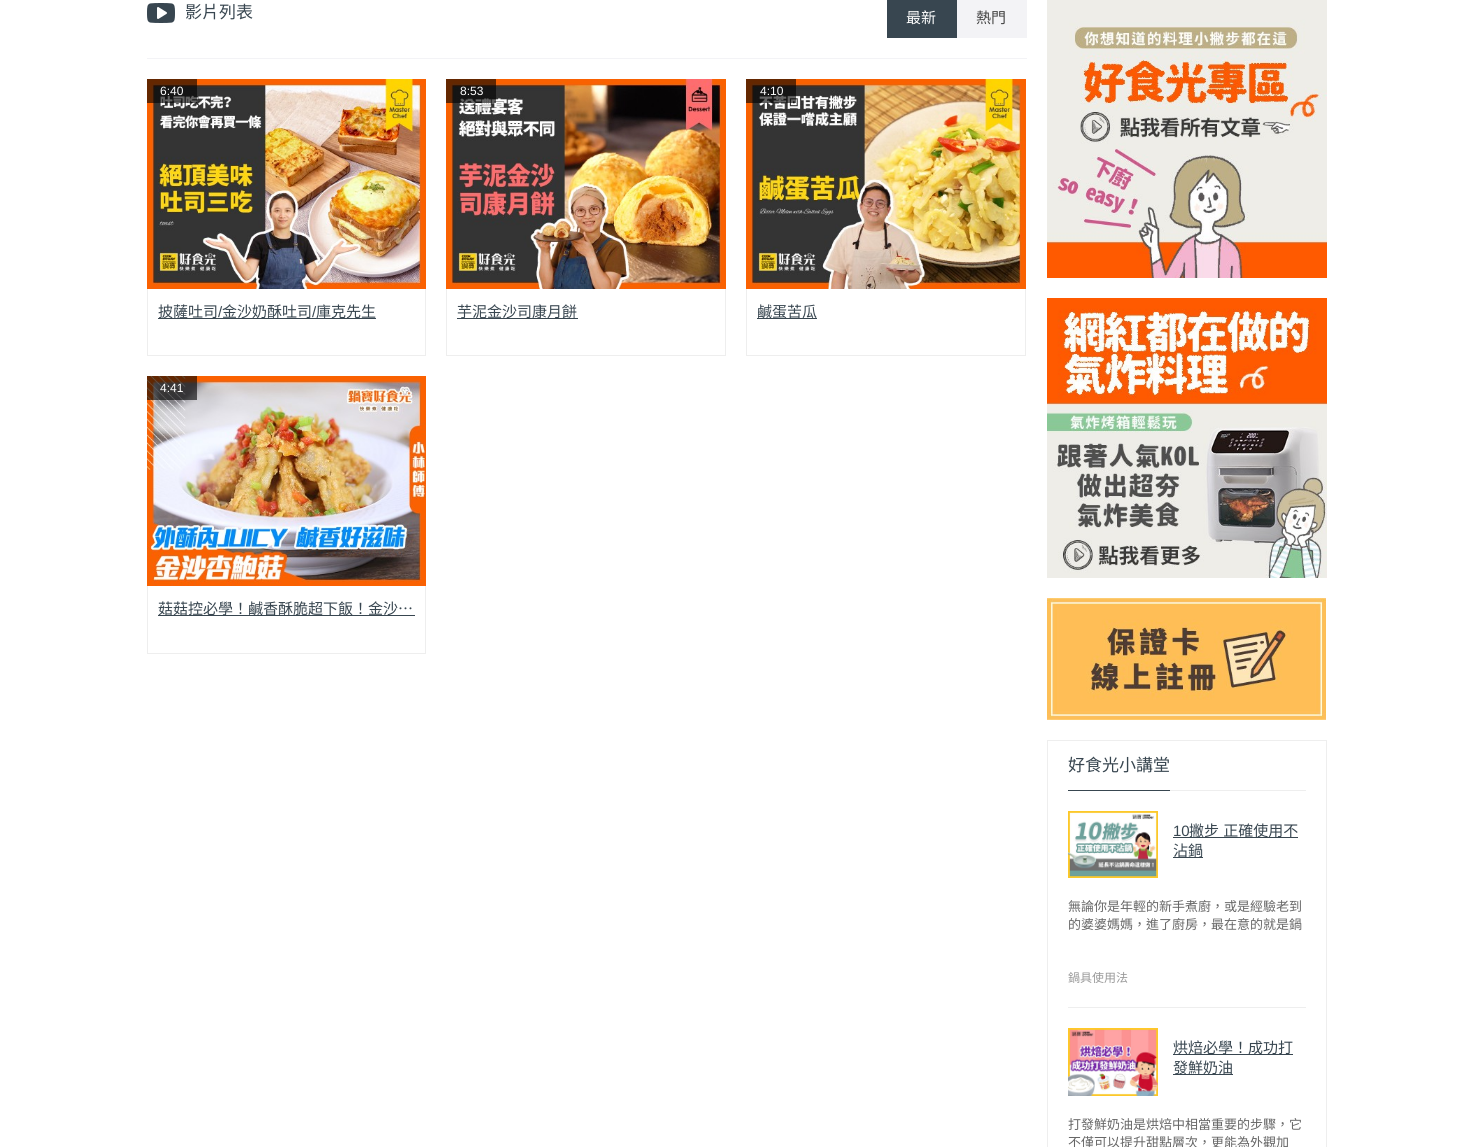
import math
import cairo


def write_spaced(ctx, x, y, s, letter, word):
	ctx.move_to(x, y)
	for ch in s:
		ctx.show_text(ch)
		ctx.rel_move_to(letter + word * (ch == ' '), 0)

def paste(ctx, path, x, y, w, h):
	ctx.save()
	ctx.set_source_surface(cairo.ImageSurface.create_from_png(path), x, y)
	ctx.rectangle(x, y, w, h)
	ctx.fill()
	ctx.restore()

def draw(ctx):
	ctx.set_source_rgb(1, 1, 1)
	ctx.paint()
	paste(ctx, 'media/1.png', 147, 3, 28, 20)
	ctx.select_font_face('Noto Sans CJK TC')
	ctx.set_font_size(17)
	ctx.set_source_rgb(0.22, 0.275, 0.314)
	ctx.move_to(185, 18)
	ctx.show_text('影片列表')
	ctx.rectangle(887, 0, 70, 38)
	ctx.fill()
	ctx.set_font_size(15)
	ctx.set_source_rgb(1, 1, 1)
	ctx.move_to(906, 23)
	ctx.show_text('最新')
	ctx.set_source_rgb(0.953, 0.953, 0.961)
	ctx.rectangle(957, 0, 70, 38)
	ctx.fill()
	ctx.set_source_rgb(0.267, 0.267, 0.267)
	ctx.move_to(976, 23)
	ctx.show_text('熱門')
	ctx.set_source_rgb(0.953, 0.953, 0.961)
	ctx.rectangle(147, 58, 880, 1)
	ctx.fill()
	paste(ctx, 'media/2.png', 147, 79, 279, 210)
	ctx.set_source_rgba(0, 0, 0, 0.6)
	ctx.rectangle(147, 79, 50, 24)
	ctx.fill()
	ctx.select_font_face('Liberation Sans')
	ctx.set_font_size(12)
	ctx.set_source_rgb(1, 1, 1)
	ctx.move_to(160, 95)
	ctx.show_text('6:40')
	ctx.set_source_rgb(0.933, 0.933, 0.933)
	ctx.rectangle(425, 289, 1, 67)
	ctx.rectangle(147, 355, 279, 1)
	ctx.rectangle(147, 289, 1, 67)
	ctx.fill()
	ctx.set_source_rgb(0.22, 0.275, 0.314)
	ctx.rectangle(158, 318, 218, 1)
	ctx.fill()
	ctx.select_font_face('Noto Sans CJK TC')
	ctx.set_font_size(15)
	ctx.move_to(158, 317)
	ctx.show_text('披薩吐司')
	ctx.select_font_face('Liberation Sans')
	ctx.move_to(218, 317)
	ctx.show_text('/')
	ctx.select_font_face('Noto Sans CJK TC')
	ctx.move_to(222, 317)
	ctx.show_text('金沙奶酥吐司')
	ctx.select_font_face('Liberation Sans')
	ctx.move_to(312, 317)
	ctx.show_text('/')
	ctx.select_font_face('Noto Sans CJK TC')
	ctx.move_to(316, 317)
	ctx.show_text('庫克先生')
	paste(ctx, 'media/3.png', 446, 79, 280, 210)
	ctx.set_source_rgba(0, 0, 0, 0.6)
	ctx.rectangle(446, 79, 50, 24)
	ctx.fill()
	ctx.select_font_face('Liberation Sans')
	ctx.set_font_size(12)
	ctx.set_source_rgb(1, 1, 1)
	ctx.move_to(460, 95)
	ctx.show_text('8:53')
	ctx.set_source_rgb(0.933, 0.933, 0.933)
	ctx.rectangle(725, 289, 1, 67)
	ctx.rectangle(446, 355, 280, 1)
	ctx.rectangle(446, 289, 1, 67)
	ctx.fill()
	ctx.set_source_rgb(0.22, 0.275, 0.314)
	ctx.rectangle(457, 318, 121, 1)
	ctx.fill()
	ctx.select_font_face('Noto Sans CJK TC')
	ctx.set_font_size(15)
	ctx.move_to(457, 317)
	ctx.show_text('芋泥金沙司康月餅')
	paste(ctx, 'media/4.png', 746, 79, 280, 210)
	ctx.set_source_rgba(0, 0, 0, 0.6)
	ctx.rectangle(746, 79, 50, 24)
	ctx.fill()
	ctx.select_font_face('Liberation Sans')
	ctx.set_font_size(12)
	ctx.set_source_rgb(1, 1, 1)
	ctx.move_to(760, 95)
	ctx.show_text('4:10')
	ctx.set_source_rgb(0.933, 0.933, 0.933)
	ctx.rectangle(1025, 289, 1, 67)
	ctx.rectangle(746, 355, 280, 1)
	ctx.rectangle(746, 289, 1, 67)
	ctx.fill()
	ctx.set_source_rgb(0.22, 0.275, 0.314)
	ctx.rectangle(757, 318, 60, 1)
	ctx.fill()
	ctx.select_font_face('Noto Sans CJK TC')
	ctx.set_font_size(15)
	ctx.move_to(757, 317)
	ctx.show_text('鹹蛋苦瓜')
	paste(ctx, 'media/5.png', 147, 376, 279, 210)
	ctx.set_source_rgba(0, 0, 0, 0.6)
	ctx.rectangle(147, 376, 50, 24)
	ctx.fill()
	ctx.select_font_face('Liberation Sans')
	ctx.set_font_size(12)
	ctx.set_source_rgb(1, 1, 1)
	ctx.move_to(160, 392)
	ctx.show_text('4:41')
	ctx.set_source_rgb(0.933, 0.933, 0.933)
	ctx.rectangle(425, 586, 1, 68)
	ctx.rectangle(147, 653, 279, 1)
	ctx.rectangle(147, 586, 1, 68)
	ctx.fill()
	ctx.set_source_rgb(0.22, 0.275, 0.314)
	ctx.rectangle(158, 615, 257, 1)
	ctx.fill()
	ctx.select_font_face('Noto Sans CJK TC')
	ctx.set_font_size(15)
	ctx.move_to(158, 614)
	ctx.show_text('菇菇控必學！鹹香酥脆超下飯！金沙…')
	paste(ctx, 'media/6.png', 1047, 0, 280, 278)
	paste(ctx, 'media/7.png', 1047, 298, 280, 280)
	paste(ctx, 'media/8.png', 1047, 598, 279, 122)
	ctx.rectangle(1047.5, 740.5, 279, 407)
	ctx.set_source_rgb(0.933, 0.933, 0.933)
	ctx.set_line_width(1)
	ctx.stroke()
	ctx.rectangle(1170, 790, 136, 1)
	ctx.fill()
	ctx.set_font_size(17)
	ctx.set_source_rgb(0.22, 0.275, 0.314)
	ctx.move_to(1068, 771)
	ctx.show_text('好食光小講堂')
	ctx.rectangle(1068, 790, 102, 1)
	ctx.fill()
	ctx.set_source_rgb(0.933, 0.933, 0.933)
	ctx.rectangle(1068, 1007, 238, 1)
	ctx.fill()
	paste(ctx, 'media/9.png', 1068, 811, 90, 67)
	ctx.select_font_face('Liberation Sans')
	ctx.set_font_size(15)
	ctx.set_source_rgb(0.22, 0.275, 0.314)
	ctx.move_to(1173, 836)
	ctx.show_text('10')
	ctx.rectangle(1173, 837, 125, 1)
	ctx.fill()
	ctx.select_font_face('Noto Sans CJK TC')
	write_spaced(ctx, 1189, 836, '撇步 正確使用不', 0, 1)
	ctx.rectangle(1173, 857, 30, 1)
	ctx.fill()
	ctx.move_to(1173, 856)
	ctx.show_text('沾鍋')
	ctx.set_font_size(13)
	ctx.set_source_rgb(0.4, 0.4, 0.4)
	ctx.move_to(1068, 911)
	ctx.show_text('無論你是年輕的新手煮廚，或是經驗老到')
	ctx.move_to(1068, 929)
	ctx.show_text('的婆婆媽媽，進了廚房，最在意的就是鍋')
	ctx.set_font_size(12)
	ctx.set_source_rgb(0.6, 0.6, 0.6)
	ctx.move_to(1068, 982)
	ctx.show_text('鍋具使用法')
	paste(ctx, 'media/10.png', 1068, 1028, 90, 68)
	ctx.set_source_rgb(0.22, 0.275, 0.314)
	ctx.rectangle(1173, 1054, 120, 1)
	ctx.fill()
	ctx.set_font_size(15)
	ctx.move_to(1173, 1053)
	ctx.show_text('烘焙必學！成功打')
	ctx.rectangle(1173, 1074, 60, 1)
	ctx.fill()
	ctx.move_to(1173, 1073)
	ctx.show_text('發鮮奶油')
	ctx.set_font_size(13)
	ctx.set_source_rgb(0.4, 0.4, 0.4)
	ctx.move_to(1068, 1129)
	ctx.show_text('打發鮮奶油是烘焙中相當重要的步驟，它')
	ctx.move_to(1068, 1147)
	ctx.show_text('不僅可以提升甜點層次，更能為外觀加')


surface = cairo.ImageSurface(cairo.FORMAT_RGB24, 1473, 1147)
ctx = cairo.Context(surface)
options = cairo.FontOptions()
options.set_hint_metrics(cairo.HINT_METRICS_OFF)
options.set_hint_style(cairo.HINT_STYLE_NONE)
ctx.set_font_options(options)
ctx.set_miter_limit(4)
draw(ctx)
surface.write_to_png('image.png')
